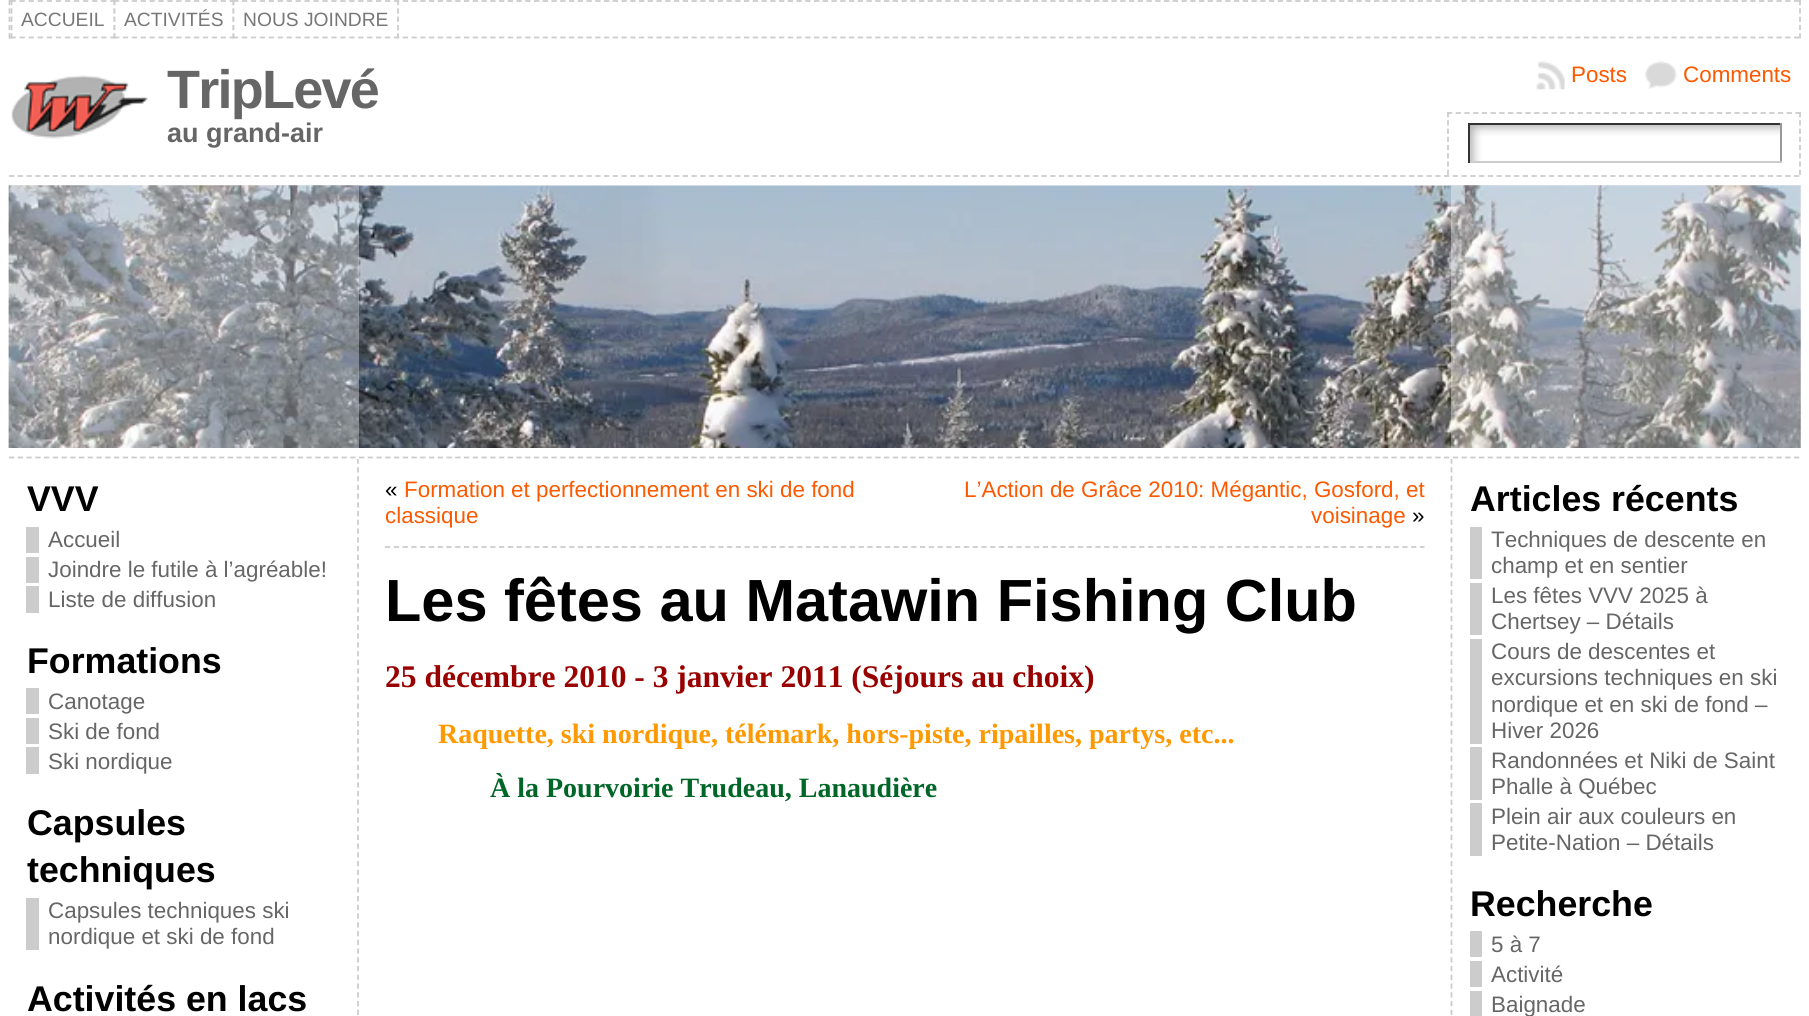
import math
import cairo


def write_spaced(ctx, x, y, s, letter, word):
	ctx.move_to(x, y)
	for ch in s:
		ctx.show_text(ch)
		ctx.rel_move_to(letter + word * (ch == ' '), 0)

def paste(ctx, path, x, y, w, h):
	ctx.save()
	ctx.set_source_surface(cairo.ImageSurface.create_from_png(path), x, y)
	ctx.rectangle(x, y, w, h)
	ctx.fill()
	ctx.restore()

def draw(ctx):
	ctx.set_source_rgb(1, 1, 1)
	ctx.paint()
	ctx.new_path()
	ctx.move_to(9, 1)
	ctx.line_to(1801, 1)
	ctx.set_source_rgb(0.8, 0.8, 0.8)
	ctx.set_line_width(1.8)
	ctx.set_dash([5.25, 3.5])
	ctx.stroke()
	ctx.new_path()
	ctx.move_to(1800, 0)
	ctx.line_to(1800, 38.5)
	ctx.set_dash([5.25, 3.06])
	ctx.stroke()
	ctx.new_path()
	ctx.move_to(9, 37.5)
	ctx.line_to(1801, 37.5)
	ctx.set_dash([5.25, 3.5])
	ctx.stroke()
	ctx.new_path()
	ctx.move_to(9.5, 0)
	ctx.line_to(9.5, 38.5)
	ctx.set_dash([5.25, 3.06])
	ctx.stroke()
	ctx.set_source_rgb(1, 1, 1)
	ctx.rectangle(11, 0, 100, 39)
	ctx.fill()
	ctx.new_path()
	ctx.move_to(10.5, 1)
	ctx.line_to(115.5, 1)
	ctx.set_source_rgb(0.8, 0.8, 0.8)
	ctx.set_dash([5.25, 3.82])
	ctx.stroke()
	ctx.new_path()
	ctx.move_to(114.5, 0)
	ctx.line_to(114.5, 38.5)
	ctx.set_dash([5.25, 3.06])
	ctx.stroke()
	ctx.new_path()
	ctx.move_to(10.5, 37.5)
	ctx.line_to(115.5, 37.5)
	ctx.set_dash([5.25, 3.82])
	ctx.stroke()
	ctx.new_path()
	ctx.move_to(11.5, 0)
	ctx.line_to(11.5, 38.5)
	ctx.set_dash([5.25, 3.06])
	ctx.stroke()
	ctx.select_font_face('Liberation Sans')
	ctx.set_font_size(19.25)
	ctx.set_source_rgb(0.467, 0.467, 0.467)
	ctx.move_to(21, 26)
	ctx.show_text('ACCUEIL')
	ctx.set_source_rgb(1, 1, 1)
	ctx.rectangle(114, 0, 119, 39)
	ctx.fill()
	ctx.new_path()
	ctx.move_to(114, 1)
	ctx.line_to(234.5, 1)
	ctx.set_source_rgb(0.8, 0.8, 0.8)
	ctx.set_dash([5.25, 3.64])
	ctx.stroke()
	ctx.new_path()
	ctx.move_to(233.5, 0)
	ctx.line_to(233.5, 38.5)
	ctx.set_dash([5.25, 3.06])
	ctx.stroke()
	ctx.new_path()
	ctx.move_to(114, 37.5)
	ctx.line_to(234.5, 37.5)
	ctx.set_dash([5.25, 3.64])
	ctx.stroke()
	ctx.new_path()
	ctx.move_to(114.5, 0)
	ctx.line_to(114.5, 38.5)
	ctx.set_dash([5.25, 3.06])
	ctx.stroke()
	ctx.set_source_rgb(0.467, 0.467, 0.467)
	ctx.move_to(124, 26)
	ctx.show_text('ACTIVITÉS')
	ctx.set_source_rgb(1, 1, 1)
	ctx.rectangle(233, 0, 166, 39)
	ctx.fill()
	ctx.new_path()
	ctx.move_to(233, 1)
	ctx.line_to(399, 1)
	ctx.set_source_rgb(0.8, 0.8, 0.8)
	ctx.set_dash([5.25, 3.69])
	ctx.stroke()
	ctx.new_path()
	ctx.move_to(398, 0)
	ctx.line_to(398, 38.5)
	ctx.set_dash([5.25, 3.06])
	ctx.stroke()
	ctx.new_path()
	ctx.move_to(233, 37.5)
	ctx.line_to(399, 37.5)
	ctx.set_dash([5.25, 3.69])
	ctx.stroke()
	ctx.new_path()
	ctx.move_to(233.5, 0)
	ctx.line_to(233.5, 38.5)
	ctx.set_dash([5.25, 3.06])
	ctx.stroke()
	ctx.set_source_rgb(0.467, 0.467, 0.467)
	ctx.move_to(243, 26)
	ctx.show_text('NOUS JOINDRE')
	paste(ctx, 'media/1.png', 11, 75, 137, 64)
	ctx.select_font_face('Liberation Sans', cairo.FONT_SLANT_NORMAL, cairo.FONT_WEIGHT_BOLD)
	ctx.set_font_size(54)
	ctx.set_source_rgb(0.4, 0.4, 0.4)
	write_spaced(ctx, 167, 108, 'TripLevé', -1.75, 0)
	ctx.set_font_size(27)
	ctx.move_to(167, 142)
	ctx.show_text('au grand-air')
	paste(ctx, 'media/2.png', 1536, 61, 29, 29)
	ctx.select_font_face('Liberation Sans')
	ctx.set_font_size(22.4)
	ctx.set_source_rgb(0.988, 0.349, 0)
	ctx.move_to(1571, 82)
	ctx.show_text('Posts')
	paste(ctx, 'media/3.png', 1645, 61, 32, 28)
	ctx.move_to(1683, 82)
	ctx.show_text('Comments')
	ctx.new_path()
	ctx.move_to(1447, 113)
	ctx.line_to(1801, 113)
	ctx.set_source_rgb(0.8, 0.8, 0.8)
	ctx.set_dash([5.25, 3.46])
	ctx.stroke()
	ctx.new_path()
	ctx.move_to(1800, 112)
	ctx.line_to(1800, 175)
	ctx.set_dash([5.25, 2.99])
	ctx.stroke()
	ctx.new_path()
	ctx.move_to(1448, 112)
	ctx.line_to(1448, 175)
	ctx.stroke()
	paste(ctx, 'media/4.png', 1470, 125, 310, 36)
	ctx.set_source_rgb(0.2, 0.2, 0.2)
	ctx.rectangle(1468, 123, 314, 2)
	ctx.fill()
	ctx.set_source_rgb(0.6, 0.6, 0.6)
	ctx.rectangle(1780, 123, 2, 40)
	ctx.fill()
	ctx.set_source_rgb(0.8, 0.8, 0.8)
	ctx.rectangle(1468, 161, 314, 2)
	ctx.fill()
	ctx.set_source_rgb(0.2, 0.2, 0.2)
	ctx.rectangle(1468, 123, 2, 40)
	ctx.fill()
	ctx.new_path()
	ctx.move_to(9, 176)
	ctx.line_to(1801, 176)
	ctx.set_source_rgb(0.8, 0.8, 0.8)
	ctx.set_dash([5.25, 3.5])
	ctx.stroke()
	paste(ctx, 'media/5.png', 8, 185, 1793, 263)
	ctx.set_source_rgba(1, 1, 1, 0.35)
	ctx.rectangle(9, 186, 350, 262)
	ctx.fill()
	ctx.rectangle(1451, 186, 350, 262)
	ctx.fill()
	ctx.new_path()
	ctx.move_to(358, 458.5)
	ctx.line_to(358, 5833)
	ctx.set_source_rgb(0.8, 0.8, 0.8)
	ctx.stroke()
	ctx.new_path()
	ctx.move_to(1451.5, 458.5)
	ctx.line_to(1451.5, 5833)
	ctx.stroke()
	ctx.set_source_rgb(1, 1, 1)
	ctx.rectangle(357, 458, 1096, 1)
	ctx.fill()
	ctx.new_path()
	ctx.move_to(9, 457.5)
	ctx.line_to(1801, 457.5)
	ctx.set_source_rgb(0.8, 0.8, 0.8)
	ctx.stroke()
	ctx.select_font_face('Liberation Sans', cairo.FONT_SLANT_NORMAL, cairo.FONT_WEIGHT_BOLD)
	ctx.set_font_size(35.75)
	ctx.set_source_rgb(0, 0, 0)
	ctx.move_to(27, 511)
	ctx.show_text('VVV')
	ctx.set_source_rgb(0.8, 0.8, 0.8)
	ctx.rectangle(26, 527, 13, 26)
	ctx.fill()
	ctx.select_font_face('Liberation Sans')
	ctx.set_font_size(22.4)
	ctx.set_source_rgb(0.4, 0.4, 0.4)
	ctx.move_to(48, 547)
	ctx.show_text('Accueil')
	ctx.set_source_rgb(0.8, 0.8, 0.8)
	ctx.rectangle(26, 557, 13, 26)
	ctx.fill()
	ctx.set_source_rgb(0.4, 0.4, 0.4)
	ctx.move_to(48, 577)
	ctx.show_text('Joindre le futile à l’agréable!')
	ctx.set_source_rgb(0.8, 0.8, 0.8)
	ctx.rectangle(26, 586, 13, 27)
	ctx.fill()
	ctx.set_source_rgb(0.4, 0.4, 0.4)
	ctx.move_to(48, 607)
	ctx.show_text('Liste de diffusion')
	ctx.select_font_face('Liberation Sans', cairo.FONT_SLANT_NORMAL, cairo.FONT_WEIGHT_BOLD)
	ctx.set_font_size(35.75)
	ctx.set_source_rgb(0, 0, 0)
	ctx.move_to(27, 673)
	ctx.show_text('Formations')
	ctx.set_source_rgb(0.8, 0.8, 0.8)
	ctx.rectangle(26, 688, 13, 26)
	ctx.fill()
	ctx.select_font_face('Liberation Sans')
	ctx.set_font_size(22.4)
	ctx.set_source_rgb(0.4, 0.4, 0.4)
	ctx.move_to(48, 709)
	ctx.show_text('Canotage')
	ctx.set_source_rgb(0.8, 0.8, 0.8)
	ctx.rectangle(26, 718, 13, 26)
	ctx.fill()
	ctx.set_source_rgb(0.4, 0.4, 0.4)
	ctx.move_to(48, 739)
	ctx.show_text('Ski de fond')
	ctx.set_source_rgb(0.8, 0.8, 0.8)
	ctx.rectangle(26, 747, 13, 27)
	ctx.fill()
	ctx.set_source_rgb(0.4, 0.4, 0.4)
	ctx.move_to(48, 769)
	ctx.show_text('Ski nordique')
	ctx.select_font_face('Liberation Sans', cairo.FONT_SLANT_NORMAL, cairo.FONT_WEIGHT_BOLD)
	ctx.set_font_size(35.75)
	ctx.set_source_rgb(0, 0, 0)
	ctx.move_to(27, 835)
	ctx.show_text('Capsules')
	ctx.move_to(27, 882)
	ctx.show_text('techniques')
	ctx.set_source_rgb(0.8, 0.8, 0.8)
	ctx.rectangle(26, 898, 13, 52)
	ctx.fill()
	ctx.select_font_face('Liberation Sans')
	ctx.set_font_size(22.4)
	ctx.set_source_rgb(0.4, 0.4, 0.4)
	ctx.move_to(48, 918)
	ctx.show_text('Capsules techniques ski')
	ctx.move_to(48, 944)
	ctx.show_text('nordique et ski de fond')
	ctx.select_font_face('Liberation Sans', cairo.FONT_SLANT_NORMAL, cairo.FONT_WEIGHT_BOLD)
	ctx.set_font_size(35.75)
	ctx.set_source_rgb(0, 0, 0)
	ctx.move_to(27, 1011)
	ctx.show_text('Activités en lacs')
	ctx.new_path()
	ctx.move_to(385, 547)
	ctx.line_to(1424.5, 547)
	ctx.set_source_rgb(0.8, 0.8, 0.8)
	ctx.set_dash([5.25, 3.52])
	ctx.stroke()
	ctx.select_font_face('Liberation Sans')
	ctx.set_font_size(22.4)
	ctx.set_source_rgb(0, 0, 0)
	ctx.move_to(385, 497)
	ctx.show_text('«')
	ctx.set_source_rgb(0.988, 0.349, 0)
	for x, y, s in [
		(404, 497, 'Formation et perfectionnement en ski de fond'),
		(385, 523, 'classique'),
		(964, 497, 'L’Action de Grâce 2010: Mégantic, Gosford, et'),
		(1311, 523, 'voisinage'),
	]:
		ctx.move_to(x, y)
		ctx.show_text(s)
	ctx.set_source_rgb(0, 0, 0)
	ctx.move_to(1412, 523)
	ctx.show_text('»')
	ctx.select_font_face('Liberation Sans', cairo.FONT_SLANT_NORMAL, cairo.FONT_WEIGHT_BOLD)
	ctx.set_font_size(59.5)
	ctx.move_to(385, 621)
	ctx.show_text('Les fêtes au Matawin Fishing Club')
	ctx.select_font_face('Liberation Serif', cairo.FONT_SLANT_NORMAL, cairo.FONT_WEIGHT_BOLD)
	ctx.set_font_size(31.5)
	ctx.set_source_rgb(0.6, 0, 0)
	ctx.move_to(385, 687)
	ctx.show_text('25 décembre 2010 - 3 janvier 2011 (Séjours au choix)')
	ctx.set_font_size(28)
	ctx.set_source_rgb(1, 0.6, 0)
	ctx.move_to(438, 743)
	ctx.show_text('Raquette, ski nordique, télémark, hors-piste, ripailles, partys, etc...')
	ctx.set_source_rgb(0, 0.4, 0.153)
	ctx.move_to(490, 797)
	ctx.show_text('À la Pourvoirie Trudeau, Lanaudière')
	ctx.select_font_face('Liberation Sans', cairo.FONT_SLANT_NORMAL, cairo.FONT_WEIGHT_BOLD)
	ctx.set_font_size(35.75)
	ctx.set_source_rgb(0, 0, 0)
	ctx.move_to(1470, 511)
	ctx.show_text('Articles récents')
	ctx.set_source_rgb(0.8, 0.8, 0.8)
	ctx.rectangle(1470, 527, 12, 52)
	ctx.fill()
	ctx.select_font_face('Liberation Sans')
	ctx.set_font_size(22.4)
	ctx.set_source_rgb(0.4, 0.4, 0.4)
	ctx.move_to(1491, 547)
	ctx.show_text('Techniques de descente en')
	ctx.move_to(1491, 573)
	ctx.show_text('champ et en sentier')
	ctx.set_source_rgb(0.8, 0.8, 0.8)
	ctx.rectangle(1470, 583, 12, 52)
	ctx.fill()
	ctx.set_source_rgb(0.4, 0.4, 0.4)
	ctx.move_to(1491, 603)
	ctx.show_text('Les fêtes VVV 2025 à')
	ctx.move_to(1491, 629)
	ctx.show_text('Chertsey – Détails')
	ctx.set_source_rgb(0.8, 0.8, 0.8)
	ctx.rectangle(1470, 639, 12, 105)
	ctx.fill()
	ctx.set_source_rgb(0.4, 0.4, 0.4)
	for x, y, s in [
		(1491, 659, 'Cours de descentes et'),
		(1491, 685, 'excursions techniques en ski'),
		(1491, 712, 'nordique et en ski de fond –'),
		(1491, 738, 'Hiver 2026'),
	]:
		ctx.move_to(x, y)
		ctx.show_text(s)
	ctx.set_source_rgb(0.8, 0.8, 0.8)
	ctx.rectangle(1470, 747, 12, 53)
	ctx.fill()
	ctx.set_source_rgb(0.4, 0.4, 0.4)
	ctx.move_to(1491, 768)
	ctx.show_text('Randonnées et Niki de Saint')
	ctx.move_to(1491, 794)
	ctx.show_text('Phalle à Québec')
	ctx.set_source_rgb(0.8, 0.8, 0.8)
	ctx.rectangle(1470, 803, 12, 53)
	ctx.fill()
	ctx.set_source_rgb(0.4, 0.4, 0.4)
	ctx.move_to(1491, 824)
	ctx.show_text('Plein air aux couleurs en')
	ctx.move_to(1491, 850)
	ctx.show_text('Petite-Nation – Détails')
	ctx.select_font_face('Liberation Sans', cairo.FONT_SLANT_NORMAL, cairo.FONT_WEIGHT_BOLD)
	ctx.set_font_size(35.75)
	ctx.set_source_rgb(0, 0, 0)
	ctx.move_to(1470, 916)
	ctx.show_text('Recherche')
	ctx.select_font_face('Liberation Sans')
	ctx.set_font_size(22.4)
	ctx.set_source_rgb(0.4, 0.4, 0.4)
	ctx.move_to(1491, 952)
	ctx.show_text('5 à 7')
	ctx.set_source_rgb(0.8, 0.8, 0.8)
	ctx.rectangle(1470, 931, 12, 26)
	ctx.fill()
	ctx.set_source_rgb(0.4, 0.4, 0.4)
	ctx.move_to(1491, 982)
	ctx.show_text('Activité')
	ctx.set_source_rgb(0.8, 0.8, 0.8)
	ctx.rectangle(1470, 961, 12, 26)
	ctx.fill()
	ctx.set_source_rgb(0.4, 0.4, 0.4)
	ctx.move_to(1491, 1012)
	ctx.show_text('Baignade')
	ctx.set_source_rgb(0.8, 0.8, 0.8)
	ctx.rectangle(1470, 991, 12, 25)
	ctx.fill()


surface = cairo.ImageSurface(cairo.FORMAT_RGB24, 1809, 1016)
ctx = cairo.Context(surface)
options = cairo.FontOptions()
options.set_hint_metrics(cairo.HINT_METRICS_OFF)
options.set_hint_style(cairo.HINT_STYLE_NONE)
ctx.set_font_options(options)
ctx.set_miter_limit(4)
draw(ctx)
surface.write_to_png('image.png')
